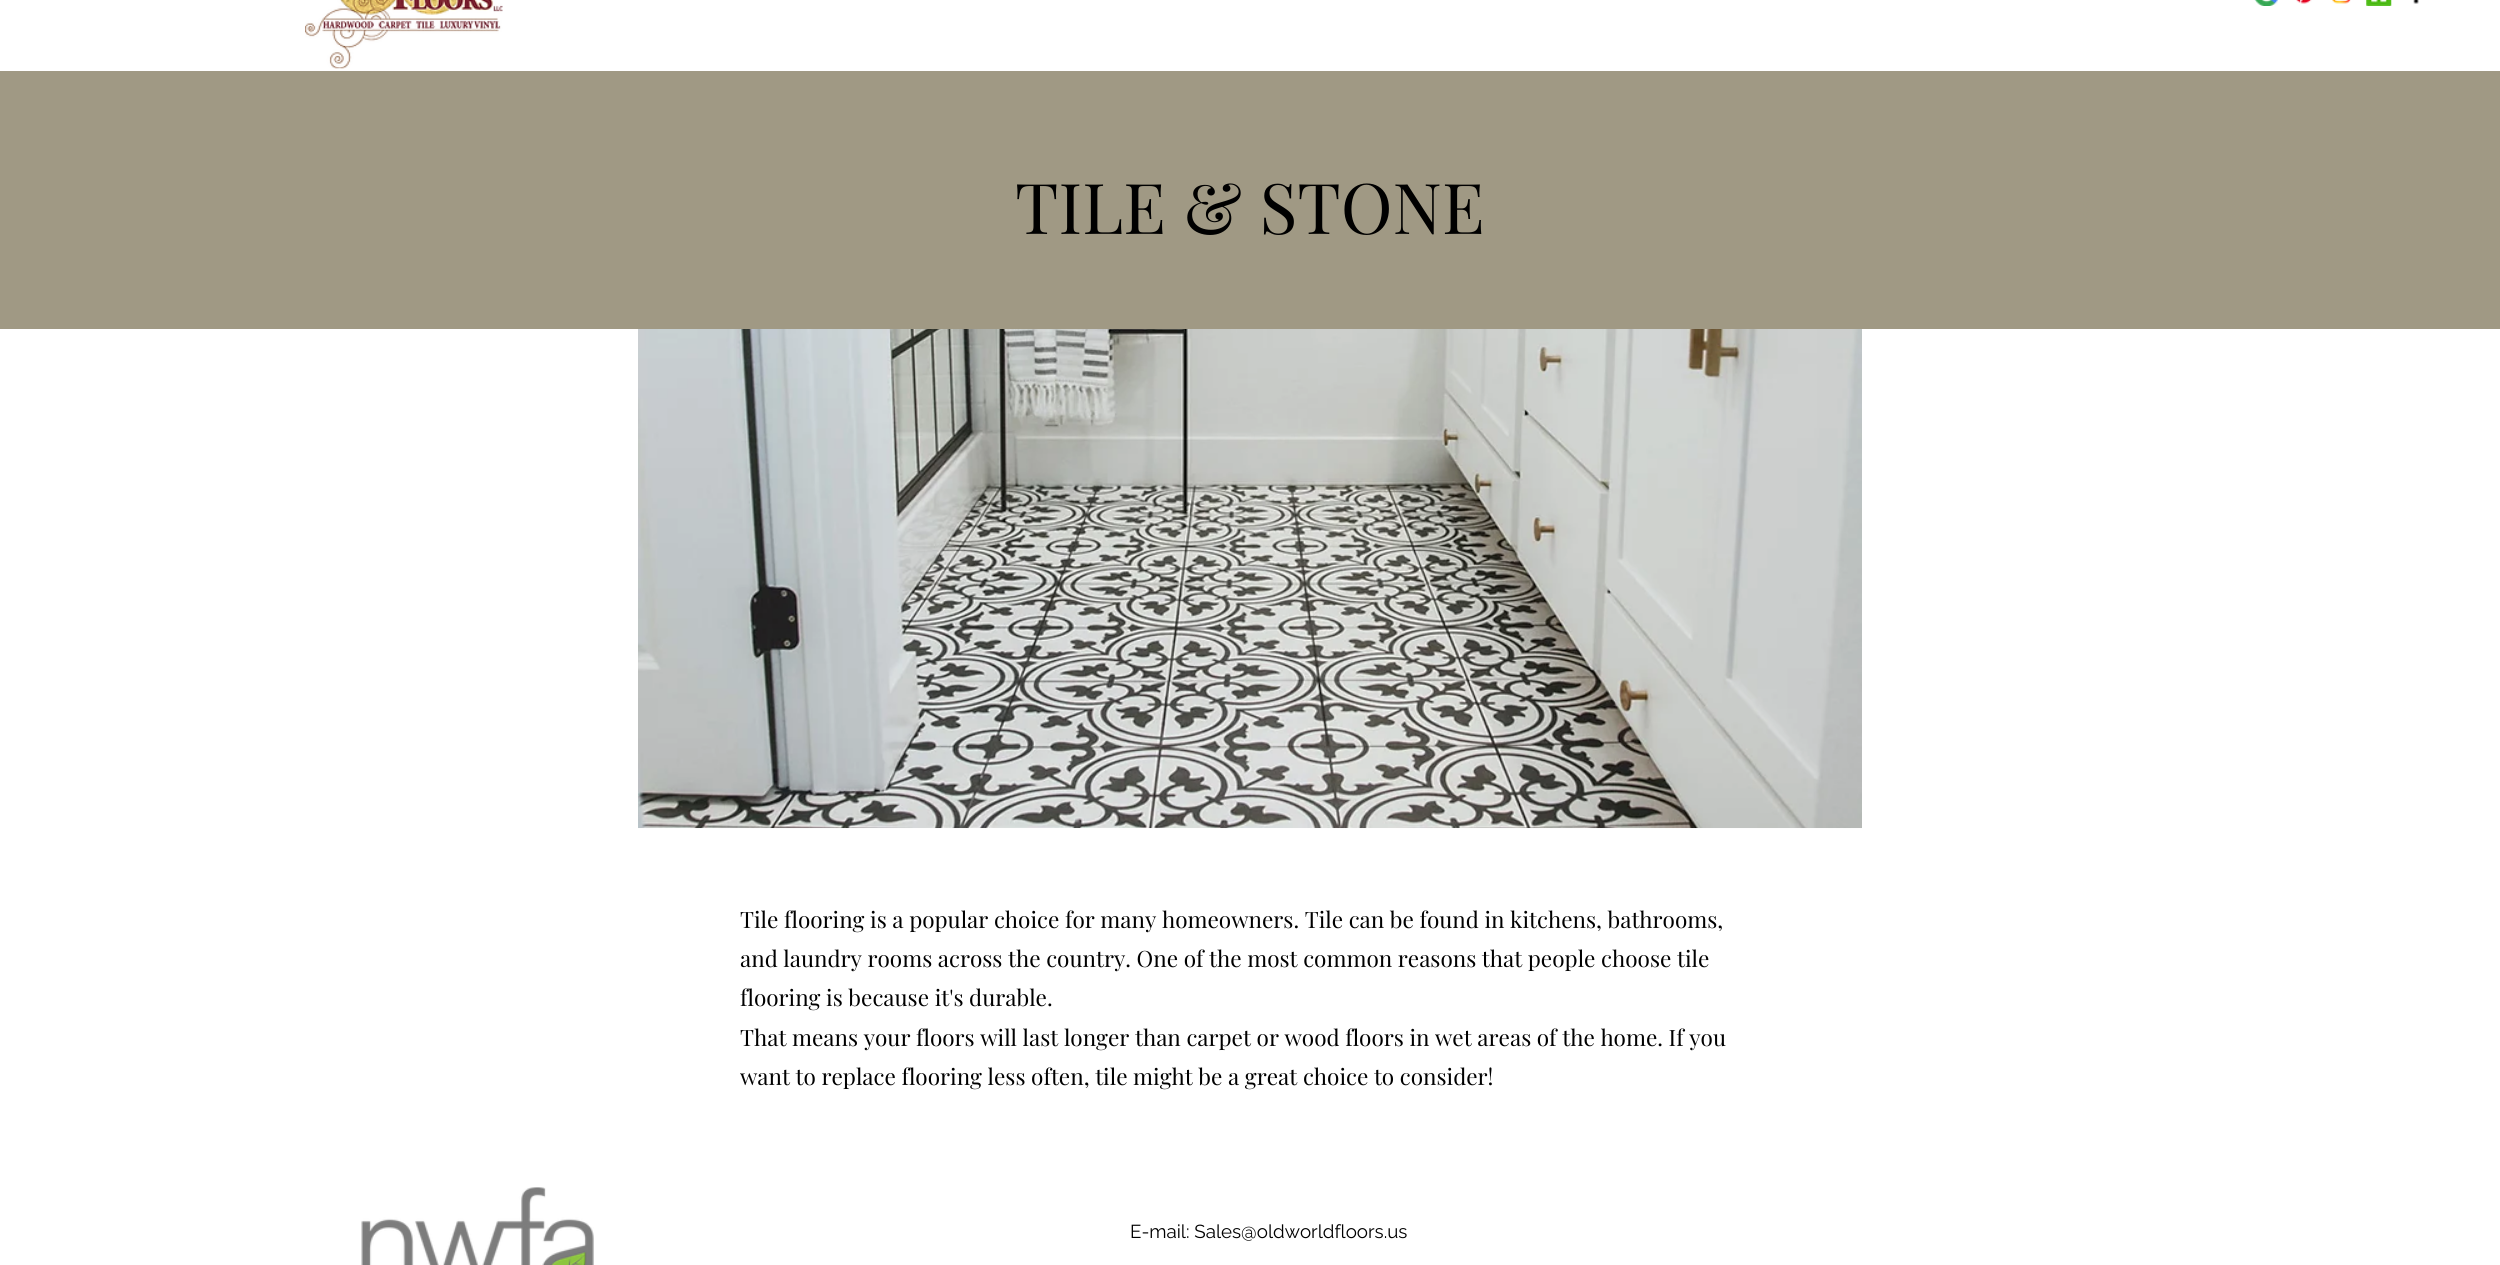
import math
import cairo


def paste(ctx, path, x, y, w, h):
	ctx.save()
	ctx.set_source_surface(cairo.ImageSurface.create_from_png(path), x, y)
	ctx.rectangle(x, y, w, h)
	ctx.fill()
	ctx.restore()

def draw(ctx):
	ctx.set_source_rgb(1, 1, 1)
	ctx.paint()
	paste(ctx, 'media/1.png', 305, 0, 198, 69)
	paste(ctx, 'media/2.png', 2254, 0, 24, 6)
	paste(ctx, 'media/3.png', 2296, 0, 16, 4)
	paste(ctx, 'media/4.png', 2332, 0, 19, 4)
	paste(ctx, 'media/5.png', 2366, 0, 26, 6)
	paste(ctx, 'media/6.png', 2413, 0, 6, 4)
	ctx.set_source_rgb(0.627, 0.6, 0.518)
	ctx.rectangle(0, 71, 2500, 258)
	ctx.fill()
	ctx.select_font_face('Playfair Display')
	ctx.set_font_size(70)
	ctx.set_source_rgb(0, 0, 0)
	ctx.move_to(1015, 234)
	ctx.show_text('TILE & STONE')
	paste(ctx, 'media/7.png', 638, 329, 1224, 500)
	ctx.set_font_size(22.5)
	for x, y, s in [
		(740, 928, 'Tile flooring is a popular choice for many homeowners. Tile can be found in kitchens, bathrooms,'),
		(740, 967, 'and laundry rooms across the country. One of the most common reasons that people choose tile'),
		(740, 1006, 'flooring is because it\'s durable.'),
		(740, 1046, 'That means your floors will last longer than carpet or wood floors in wet areas of the home. If you'),
		(740, 1085, 'want to replace flooring less often, tile might be a great choice to consider!'),
	]:
		ctx.move_to(x, y)
		ctx.show_text(s)
	paste(ctx, 'media/8.png', 361, 1187, 233, 78)
	ctx.select_font_face('Raleway')
	ctx.set_font_size(18.75)
	ctx.move_to(1130, 1238)
	ctx.show_text('E-mail: Sales@oldworldfloors.us')


surface = cairo.ImageSurface(cairo.FORMAT_RGB24, 2500, 1265)
ctx = cairo.Context(surface)
options = cairo.FontOptions()
options.set_hint_metrics(cairo.HINT_METRICS_OFF)
options.set_hint_style(cairo.HINT_STYLE_NONE)
ctx.set_font_options(options)
ctx.set_miter_limit(4)
draw(ctx)
surface.write_to_png('image.png')
